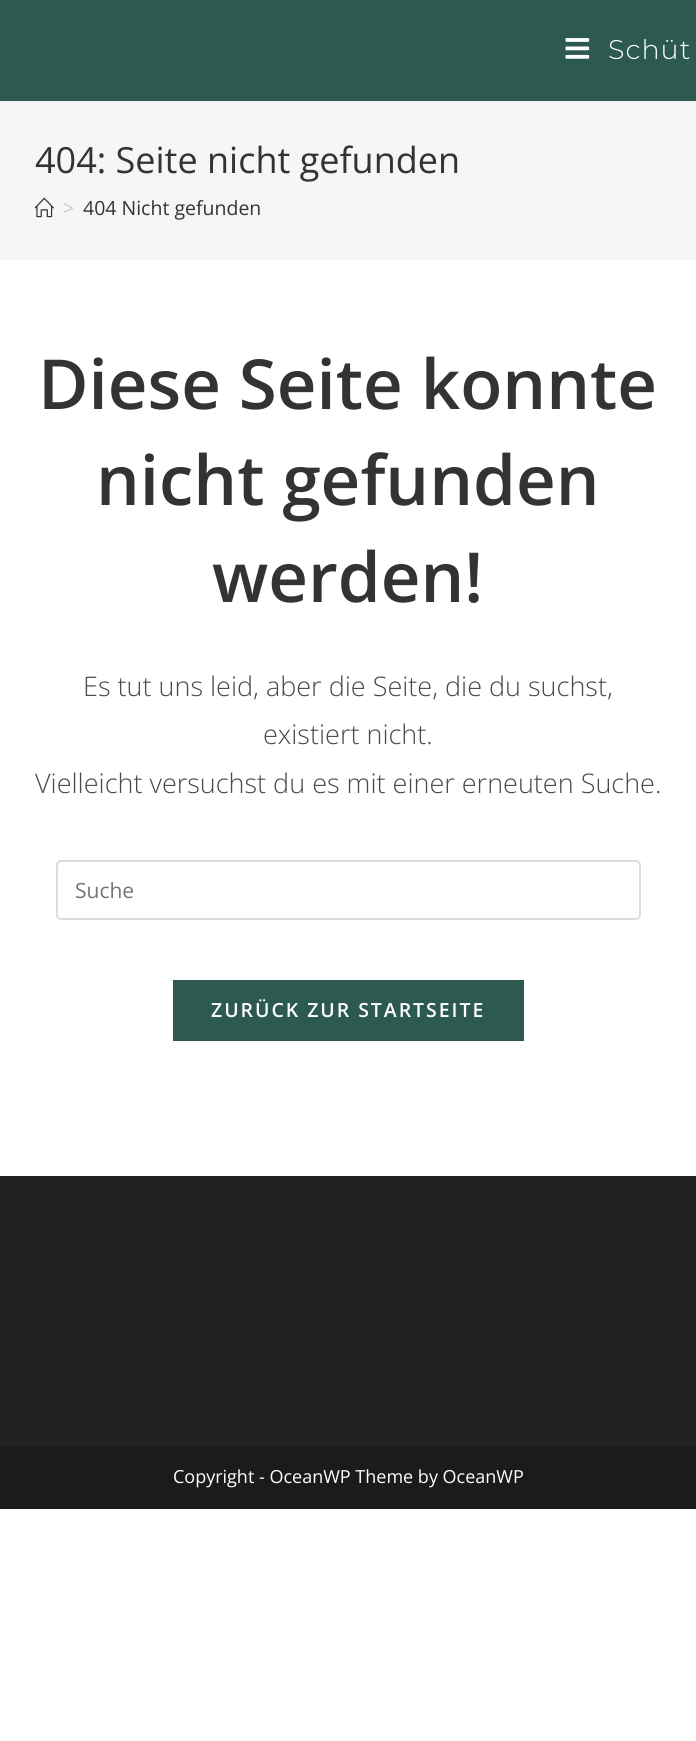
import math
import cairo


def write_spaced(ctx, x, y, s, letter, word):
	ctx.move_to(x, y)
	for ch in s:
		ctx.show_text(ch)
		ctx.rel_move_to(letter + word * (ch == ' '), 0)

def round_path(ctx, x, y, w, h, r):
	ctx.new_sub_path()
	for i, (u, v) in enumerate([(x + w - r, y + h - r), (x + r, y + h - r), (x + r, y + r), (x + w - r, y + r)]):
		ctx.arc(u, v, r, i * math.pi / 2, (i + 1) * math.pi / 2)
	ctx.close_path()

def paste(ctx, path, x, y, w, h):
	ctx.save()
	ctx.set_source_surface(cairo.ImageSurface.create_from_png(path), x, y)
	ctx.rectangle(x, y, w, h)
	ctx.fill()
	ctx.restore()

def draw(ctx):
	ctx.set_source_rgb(1, 1, 1)
	ctx.paint()
	ctx.set_source_rgb(0.173, 0.353, 0.314)
	ctx.rectangle(0, 0, 696, 101)
	ctx.fill()
	ctx.set_source_rgb(0.945, 0.945, 0.945)
	ctx.rectangle(0, 101, 696, 2)
	ctx.fill()
	paste(ctx, 'media/1.png', 565, 38, 25, 21)
	ctx.select_font_face('Montserrat Thin')
	ctx.set_font_size(27)
	ctx.set_source_rgb(1, 1, 1)
	write_spaced(ctx, 608, 59, 'Schüt', 1, 0)
	ctx.set_source_rgb(0.961, 0.961, 0.961)
	ctx.rectangle(0, 103, 696, 157)
	ctx.fill()
	ctx.select_font_face('Open Sans')
	ctx.set_font_size(36)
	ctx.set_source_rgb(0.2, 0.2, 0.2)
	ctx.move_to(35, 173)
	ctx.show_text('404: Seite nicht gefunden')
	paste(ctx, 'media/2.png', 35, 197, 19, 21)
	ctx.set_font_size(19.5)
	ctx.set_source_rgb(0.776, 0.776, 0.776)
	ctx.move_to(63, 215)
	ctx.show_text('>')
	ctx.set_source_rgb(0.2, 0.2, 0.2)
	ctx.move_to(83, 215)
	ctx.show_text('404 Nicht gefunden')
	ctx.select_font_face('Open Sans SemiBold')
	ctx.set_font_size(69)
	for x, y, s in [
		(38, 409, 'Diese Seite konnte'),
		(96, 505, 'nicht gefunden'),
		(212, 602, 'werden!'),
	]:
		ctx.move_to(x, y)
		ctx.show_text(s)
	ctx.select_font_face('Open Sans Light')
	ctx.set_font_size(27)
	ctx.set_source_rgb(0.29, 0.29, 0.29)
	for x, y, s in [
		(83, 696, 'Es tut uns leid, aber die Seite, die du suchst,'),
		(263, 744, 'existiert nicht.'),
		(35, 793, 'Vielleicht versuchst du es mit einer erneuten Suche.'),
	]:
		ctx.move_to(x, y)
		ctx.show_text(s)
	round_path(ctx, 57, 861, 583, 58, 4)
	ctx.set_source_rgb(0.867, 0.867, 0.867)
	ctx.stroke()
	ctx.select_font_face('Open Sans')
	ctx.set_font_size(21)
	ctx.set_source_rgb(0.459, 0.459, 0.459)
	ctx.move_to(75, 898)
	ctx.show_text('Suche')
	ctx.set_source_rgb(0.173, 0.353, 0.314)
	ctx.rectangle(173, 980, 351, 61)
	ctx.fill()
	ctx.select_font_face('Open Sans SemiBold')
	ctx.set_font_size(19.5)
	ctx.set_source_rgb(1, 1, 1)
	write_spaced(ctx, 211, 1017, 'ZURÜCK ZUR STARTSEITE', 1.95, 0)
	ctx.set_source_rgb(0.133, 0.133, 0.133)
	ctx.rectangle(0, 1176, 696, 270)
	ctx.fill()
	ctx.set_source_rgb(0.106, 0.106, 0.106)
	ctx.rectangle(0, 1446, 696, 63)
	ctx.fill()
	ctx.select_font_face('Open Sans')
	ctx.set_font_size(18)
	ctx.set_source_rgb(1, 1, 1)
	ctx.move_to(173, 1483)
	ctx.show_text('Copyright - OceanWP Theme by OceanWP')


surface = cairo.ImageSurface(cairo.FORMAT_RGB24, 696, 1741)
ctx = cairo.Context(surface)
options = cairo.FontOptions()
options.set_hint_metrics(cairo.HINT_METRICS_OFF)
options.set_hint_style(cairo.HINT_STYLE_NONE)
ctx.set_font_options(options)
ctx.set_miter_limit(4)
draw(ctx)
surface.write_to_png('image.png')
